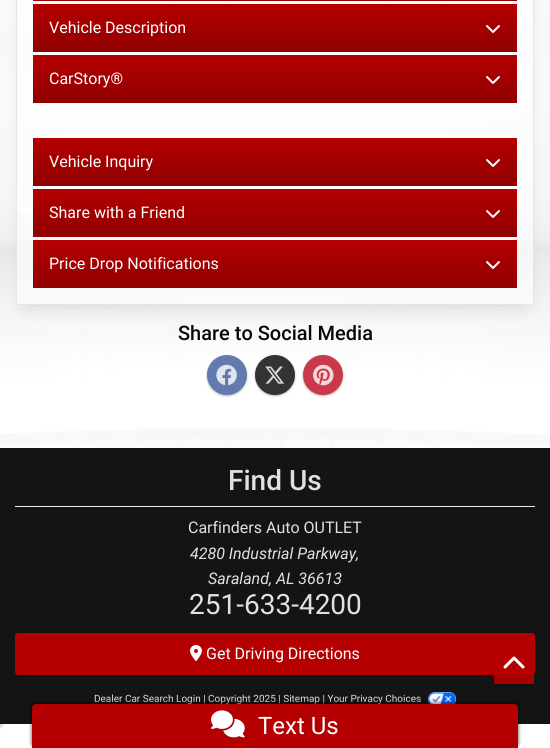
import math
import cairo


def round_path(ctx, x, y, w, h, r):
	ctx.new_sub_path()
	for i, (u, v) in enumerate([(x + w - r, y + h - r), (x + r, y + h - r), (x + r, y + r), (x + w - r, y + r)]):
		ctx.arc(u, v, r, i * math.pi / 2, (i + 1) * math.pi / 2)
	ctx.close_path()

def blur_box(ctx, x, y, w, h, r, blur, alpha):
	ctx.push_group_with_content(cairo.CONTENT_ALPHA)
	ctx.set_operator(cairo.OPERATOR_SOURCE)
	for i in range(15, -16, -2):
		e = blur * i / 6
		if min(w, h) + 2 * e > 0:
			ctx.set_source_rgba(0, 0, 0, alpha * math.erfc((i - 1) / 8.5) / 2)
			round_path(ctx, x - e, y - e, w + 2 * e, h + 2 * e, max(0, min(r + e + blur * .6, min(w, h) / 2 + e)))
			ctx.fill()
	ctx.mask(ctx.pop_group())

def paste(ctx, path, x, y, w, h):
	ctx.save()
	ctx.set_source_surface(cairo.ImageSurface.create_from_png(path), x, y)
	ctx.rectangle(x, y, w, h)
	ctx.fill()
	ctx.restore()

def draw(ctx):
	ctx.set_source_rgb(1, 1, 1)
	ctx.paint()
	paste(ctx, 'media/1.png', 0, 0, 550, 748)
	ctx.set_source_rgba(1, 1, 1, 0.8)
	ctx.rectangle(0, 0, 550, 448)
	ctx.fill()
	ctx.save()
	ctx.set_fill_rule(cairo.FILL_RULE_EVEN_ODD)
	ctx.new_path()
	ctx.move_to(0, 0)
	ctx.line_to(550, 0)
	ctx.line_to(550, 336)
	ctx.line_to(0, 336)
	ctx.close_path()
	ctx.move_to(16, -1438)
	ctx.line_to(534, -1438)
	ctx.line_to(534, 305)
	ctx.line_to(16, 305)
	ctx.close_path()
	ctx.clip()
	ctx.set_source_rgb(0, 0, 0)
	blur_box(ctx, 26, -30, 498, 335, 0, 10, 0.15)
	ctx.restore()
	ctx.set_source_rgba(1, 1, 1, 0.6)
	ctx.rectangle(17, 0, 516, 304)
	ctx.fill()
	ctx.set_source_rgb(0.902, 0.902, 0.902)
	ctx.rectangle(533, 0, 1, 305)
	ctx.rectangle(16, 304, 518, 1)
	ctx.rectangle(16, 0, 1, 305)
	ctx.fill()
	gradient = cairo.LinearGradient(275, -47, 275, 1)
	gradient.add_color_stop_rgba(0, 0.706, 0, 0, 1)
	gradient.add_color_stop_rgba(1, 0.565, 0, 0, 1)
	ctx.set_source(gradient)
	ctx.rectangle(33, 0, 484, 1)
	ctx.fill()
	gradient = cairo.LinearGradient(275, 4, 275, 52)
	gradient.add_color_stop_rgba(0, 0.706, 0, 0, 1)
	gradient.add_color_stop_rgba(1, 0.565, 0, 0, 1)
	ctx.set_source(gradient)
	ctx.rectangle(33, 4, 484, 48)
	ctx.fill()
	ctx.select_font_face('Roboto')
	ctx.set_font_size(16)
	ctx.set_source_rgb(1, 1, 1)
	ctx.move_to(49, 33)
	ctx.show_text('Vehicle Description')
	paste(ctx, 'media/2.png', 486, 25, 14, 8)
	gradient = cairo.LinearGradient(275, 55, 275, 103)
	gradient.add_color_stop_rgba(0, 0.706, 0, 0, 1)
	gradient.add_color_stop_rgba(1, 0.565, 0, 0, 1)
	ctx.set_source(gradient)
	ctx.rectangle(33, 55, 484, 48)
	ctx.fill()
	ctx.set_source_rgb(1, 1, 1)
	ctx.move_to(49, 84)
	ctx.show_text('CarStory®')
	paste(ctx, 'media/2.png', 486, 76, 14, 8)
	gradient = cairo.LinearGradient(275, 138, 275, 186)
	gradient.add_color_stop_rgba(0, 0.706, 0, 0, 1)
	gradient.add_color_stop_rgba(1, 0.565, 0, 0, 1)
	ctx.set_source(gradient)
	ctx.rectangle(33, 138, 484, 48)
	ctx.fill()
	ctx.set_source_rgb(1, 1, 1)
	ctx.move_to(49, 167)
	ctx.show_text('Vehicle Inquiry')
	paste(ctx, 'media/2.png', 486, 159, 14, 8)
	gradient = cairo.LinearGradient(275, 189, 275, 237)
	gradient.add_color_stop_rgba(0, 0.706, 0, 0, 1)
	gradient.add_color_stop_rgba(1, 0.565, 0, 0, 1)
	ctx.set_source(gradient)
	ctx.rectangle(33, 189, 484, 48)
	ctx.fill()
	ctx.set_source_rgb(1, 1, 1)
	ctx.move_to(49, 218)
	ctx.show_text('Share with a Friend')
	paste(ctx, 'media/2.png', 486, 210, 14, 8)
	gradient = cairo.LinearGradient(275, 240, 275, 288)
	gradient.add_color_stop_rgba(0, 0.706, 0, 0, 1)
	gradient.add_color_stop_rgba(1, 0.565, 0, 0, 1)
	ctx.set_source(gradient)
	ctx.rectangle(33, 240, 484, 48)
	ctx.fill()
	ctx.set_source_rgb(1, 1, 1)
	ctx.move_to(49, 269)
	ctx.show_text('Price Drop Notifications')
	paste(ctx, 'media/2.png', 486, 261, 14, 8)
	ctx.select_font_face('Roboto Medium')
	ctx.set_font_size(20)
	ctx.set_source_rgb(0.031, 0.031, 0.031)
	ctx.move_to(178, 340)
	ctx.show_text('Share to Social Media')
	ctx.set_source_rgb(0.2, 0.2, 0.2)
	blur_box(ctx, 207, 356, 40, 40, 20, 0.5, 0.2)
	blur_box(ctx, 206, 355, 42, 42, 21, 1, 0.1)
	ctx.set_source_rgb(0.384, 0.478, 0.678)
	ctx.arc(227, 375, 20, 0, 2 * math.pi)
	ctx.fill()
	paste(ctx, 'media/3.png', 216, 364, 21, 22)
	ctx.set_source_rgb(0.2, 0.2, 0.2)
	blur_box(ctx, 255, 356, 40, 40, 20, 0.5, 0.2)
	blur_box(ctx, 254, 355, 42, 42, 21, 1, 0.1)
	ctx.set_source_rgb(0.2, 0.2, 0.2)
	ctx.arc(275, 375, 20, 0, 2 * math.pi)
	ctx.fill()
	paste(ctx, 'media/4.png', 265, 366, 19, 18)
	ctx.set_source_rgb(0.2, 0.2, 0.2)
	blur_box(ctx, 303, 356, 40, 40, 20, 0.5, 0.2)
	blur_box(ctx, 302, 355, 42, 42, 21, 1, 0.1)
	ctx.set_source_rgb(0.792, 0.224, 0.286)
	ctx.arc(323, 375, 20, 0, 2 * math.pi)
	ctx.fill()
	paste(ctx, 'media/5.png', 313, 364, 21, 22)
	ctx.set_source_rgb(0.082, 0.082, 0.082)
	ctx.rectangle(0, 448, 550, 276)
	ctx.fill()
	ctx.set_source_rgb(0.922, 0.922, 0.922)
	ctx.rectangle(15, 506, 520, 1)
	ctx.fill()
	ctx.set_font_size(28)
	ctx.set_source_rgb(0.882, 0.882, 0.882)
	ctx.move_to(228, 490)
	ctx.show_text('Find Us')
	ctx.select_font_face('Roboto')
	ctx.set_font_size(16)
	ctx.move_to(188, 533)
	ctx.show_text('Carfinders Auto OUTLET')
	ctx.select_font_face('Roboto', cairo.FONT_SLANT_ITALIC)
	ctx.move_to(190, 559)
	ctx.show_text('4280 Industrial Parkway,')
	ctx.move_to(208, 584)
	ctx.show_text('Saraland, AL 36613')
	ctx.select_font_face('Roboto')
	ctx.set_font_size(28)
	ctx.move_to(189, 614)
	ctx.show_text('251-633-4200')
	ctx.set_source_rgb(0.706, 0, 0)
	round_path(ctx, 15.5, 633.5, 519, 41, 2.5)
	ctx.fill_preserve()
	ctx.set_line_width(1)
	ctx.stroke()
	paste(ctx, 'media/6.png', 190, 645, 12, 16)
	ctx.set_font_size(16)
	ctx.set_source_rgb(1, 1, 1)
	ctx.move_to(206, 659)
	ctx.show_text('Get Driving Directions')
	ctx.set_font_size(10)
	ctx.set_source_rgb(0.882, 0.882, 0.882)
	ctx.move_to(94, 702)
	ctx.show_text('Dealer Car Search Login | Copyright 2025 | Sitemap | Your Privacy Choices')
	paste(ctx, 'media/7.png', 428, 692, 28, 12)
	ctx.save()
	ctx.set_fill_rule(cairo.FILL_RULE_EVEN_ODD)
	ctx.new_path()
	ctx.move_to(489, 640)
	ctx.line_to(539, 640)
	ctx.line_to(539, 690)
	ctx.line_to(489, 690)
	ctx.close_path()
	ctx.move_to(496, 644)
	ctx.line_to(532, 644)
	ctx.curve_to(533, 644, 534, 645, 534, 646)
	ctx.line_to(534, 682)
	ctx.curve_to(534, 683, 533, 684, 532, 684)
	ctx.line_to(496, 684)
	ctx.curve_to(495, 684, 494, 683, 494, 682)
	ctx.line_to(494, 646)
	ctx.curve_to(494, 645, 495, 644, 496, 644)
	ctx.close_path()
	ctx.clip()
	ctx.set_source_rgb(0, 0, 0)
	blur_box(ctx, 493, 644, 42, 42, 3, 1, 0.1)
	ctx.restore()
	ctx.set_source_rgba(0.706, 0, 0, 0.9)
	round_path(ctx, 494, 644, 40, 40, 2)
	ctx.fill()
	paste(ctx, 'media/8.png', 503, 656, 22, 13)
	ctx.set_source_rgb(0, 0, 0)
	blur_box(ctx, 31, 702, 488, 46, 5, 1, 0.25)
	blur_box(ctx, 30, 701, 490, 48, 6, 1.5, 0.15)
	ctx.set_source_rgb(0.706, 0, 0)
	ctx.new_path()
	ctx.move_to(36, 704)
	ctx.line_to(514, 704)
	ctx.curve_to(516, 704, 518, 706, 518, 708)
	ctx.line_to(518, 748)
	ctx.line_to(32, 748)
	ctx.line_to(32, 708)
	ctx.curve_to(32, 706, 34, 704, 36, 704)
	ctx.close_path()
	ctx.fill()
	paste(ctx, 'media/9.png', 211, 710, 34, 28)
	ctx.set_font_size(24)
	ctx.set_source_rgb(1, 1, 1)
	ctx.move_to(258, 734)
	ctx.show_text('Text Us')


surface = cairo.ImageSurface(cairo.FORMAT_RGB24, 550, 748)
ctx = cairo.Context(surface)
options = cairo.FontOptions()
options.set_hint_metrics(cairo.HINT_METRICS_OFF)
options.set_hint_style(cairo.HINT_STYLE_NONE)
ctx.set_font_options(options)
ctx.set_miter_limit(4)
draw(ctx)
surface.write_to_png('image.png')
